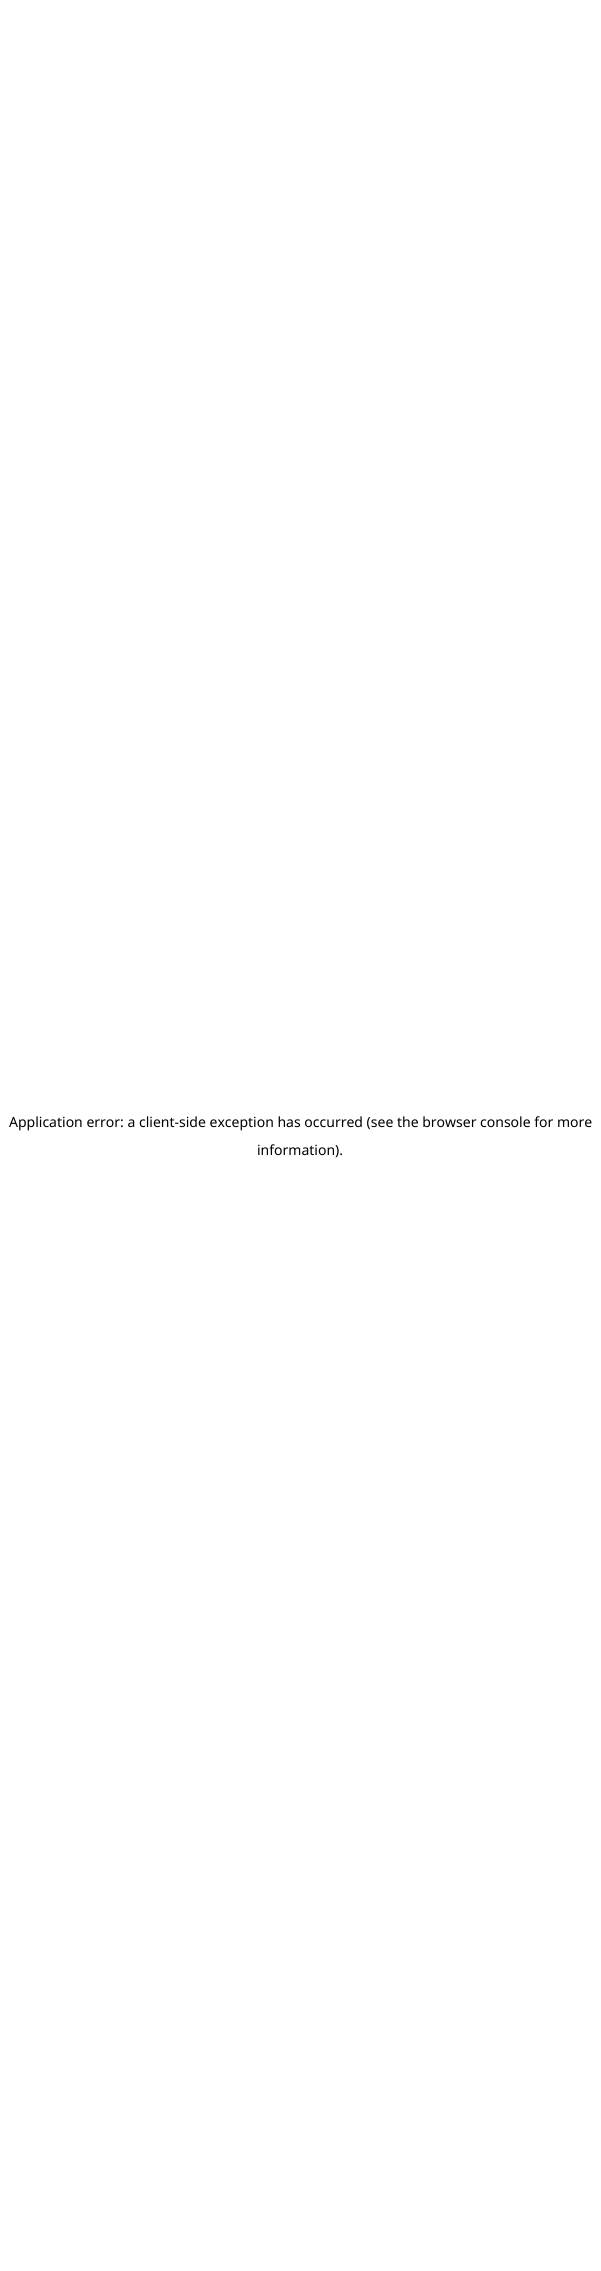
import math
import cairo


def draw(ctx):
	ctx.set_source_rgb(1, 1, 1)
	ctx.paint()
	ctx.select_font_face('Noto Sans')
	ctx.set_font_size(14)
	ctx.set_source_rgb(0, 0, 0)
	ctx.move_to(9, 1127)
	ctx.show_text('Application error: a client-side exception has occurred (see the browser console for more')
	ctx.move_to(257, 1155)
	ctx.show_text('information).')


surface = cairo.ImageSurface(cairo.FORMAT_RGB24, 601, 2271)
ctx = cairo.Context(surface)
options = cairo.FontOptions()
options.set_hint_metrics(cairo.HINT_METRICS_OFF)
options.set_hint_style(cairo.HINT_STYLE_NONE)
ctx.set_font_options(options)
ctx.set_miter_limit(4)
draw(ctx)
surface.write_to_png('image.png')
